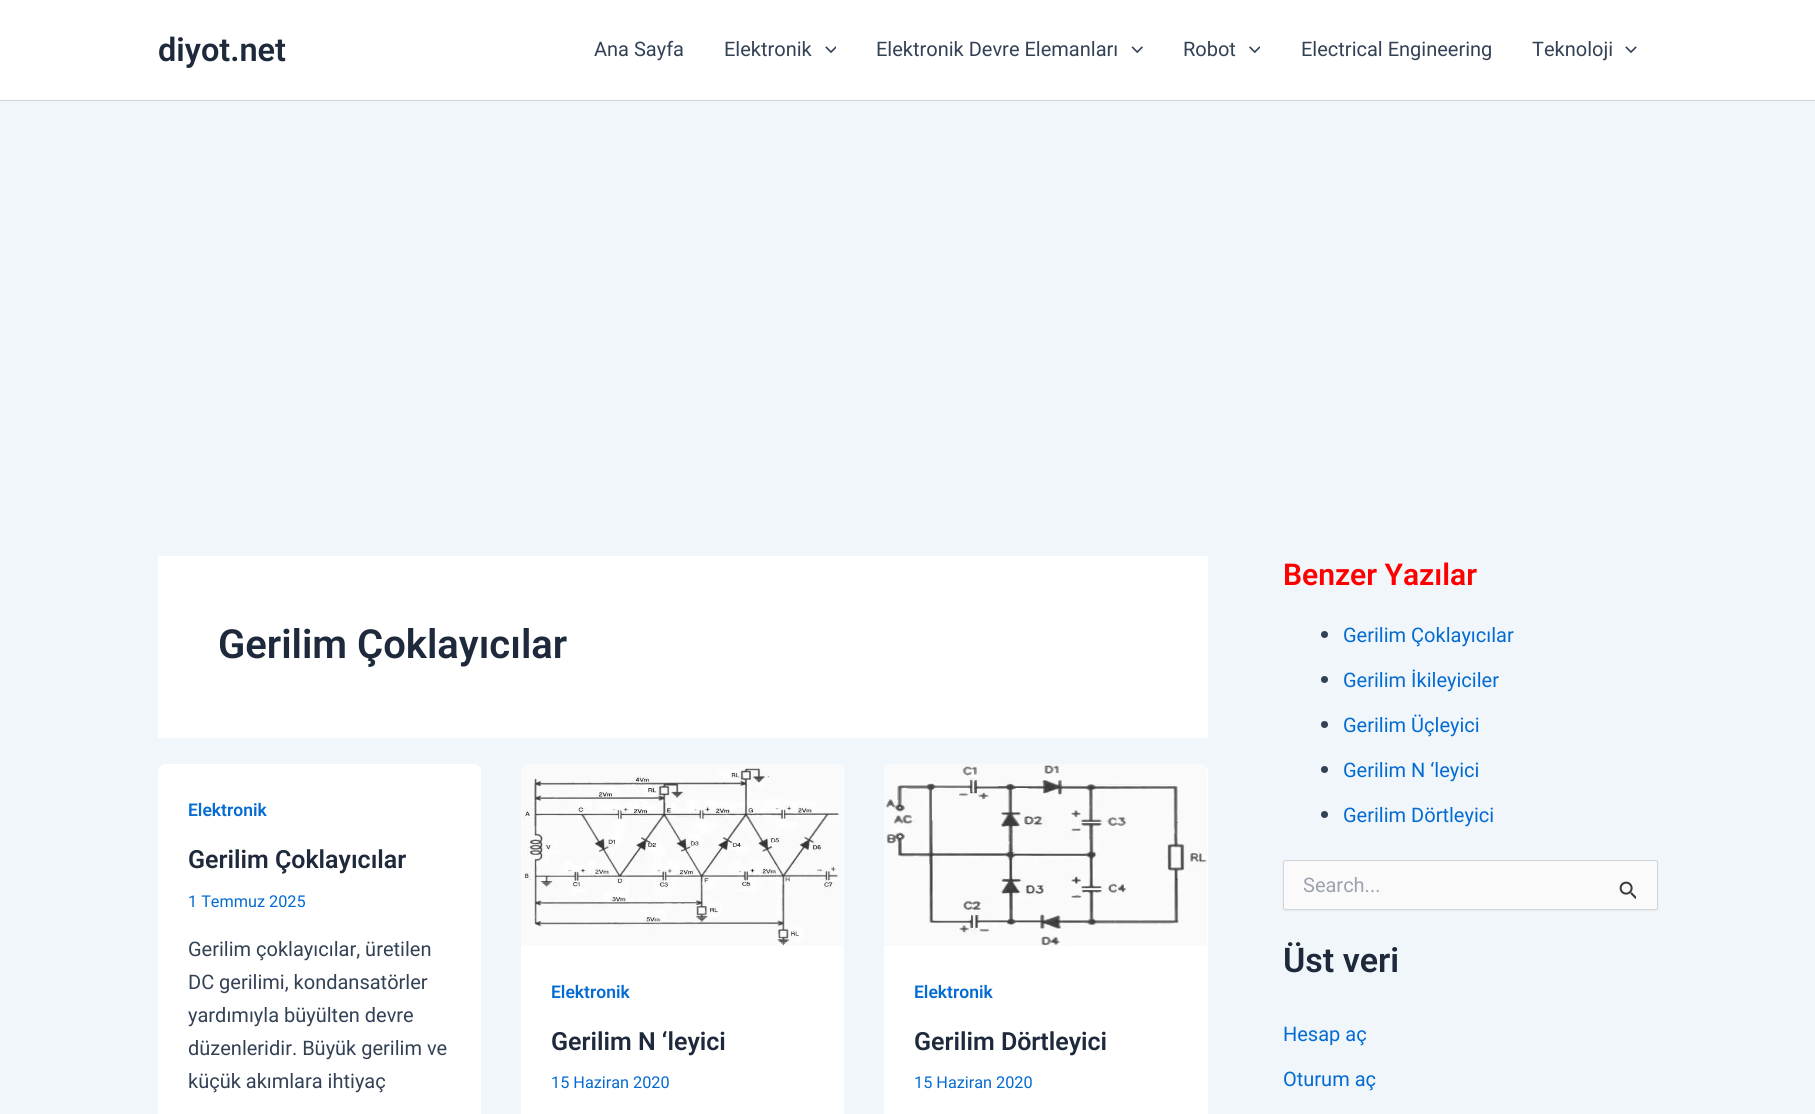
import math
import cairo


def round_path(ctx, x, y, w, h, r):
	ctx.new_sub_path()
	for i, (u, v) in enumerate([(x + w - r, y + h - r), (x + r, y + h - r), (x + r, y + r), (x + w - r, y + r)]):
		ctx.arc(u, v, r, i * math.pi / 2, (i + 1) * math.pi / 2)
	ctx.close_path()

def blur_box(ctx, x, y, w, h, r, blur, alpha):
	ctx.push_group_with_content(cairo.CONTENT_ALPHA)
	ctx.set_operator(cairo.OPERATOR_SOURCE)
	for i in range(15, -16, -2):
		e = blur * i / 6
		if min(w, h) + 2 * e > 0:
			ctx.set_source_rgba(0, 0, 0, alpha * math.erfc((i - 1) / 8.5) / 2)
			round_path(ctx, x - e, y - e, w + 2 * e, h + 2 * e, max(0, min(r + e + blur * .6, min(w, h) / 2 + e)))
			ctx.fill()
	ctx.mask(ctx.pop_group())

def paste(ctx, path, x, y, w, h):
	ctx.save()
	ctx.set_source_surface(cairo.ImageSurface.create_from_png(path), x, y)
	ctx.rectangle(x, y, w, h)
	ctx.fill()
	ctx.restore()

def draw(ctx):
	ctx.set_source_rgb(0.941, 0.961, 0.98)
	ctx.paint()
	ctx.set_source_rgb(1, 1, 1)
	ctx.rectangle(0, 0, 1815, 100)
	ctx.fill()
	ctx.set_source_rgb(0.82, 0.835, 0.859)
	ctx.rectangle(0, 100, 1815, 1)
	ctx.fill()
	ctx.select_font_face('Roboto SemiBold')
	ctx.set_font_size(32.5)
	ctx.set_source_rgb(0.118, 0.161, 0.231)
	ctx.move_to(158, 61)
	ctx.show_text('diyot.net')
	ctx.select_font_face('Roboto')
	ctx.set_font_size(20)
	ctx.set_source_rgb(0.2, 0.255, 0.333)
	ctx.move_to(594, 56)
	ctx.show_text('Ana Sayfa')
	ctx.move_to(724, 56)
	ctx.show_text('Elektronik')
	paste(ctx, 'media/1.png', 825, 46, 11, 8)
	ctx.move_to(876, 56)
	ctx.show_text('Elektronik Devre Elemanları')
	paste(ctx, 'media/2.png', 1131, 46, 12, 8)
	ctx.move_to(1183, 56)
	ctx.show_text('Robot')
	paste(ctx, 'media/3.png', 1249, 46, 11, 8)
	ctx.move_to(1301, 56)
	ctx.show_text('Electrical Engineering')
	ctx.move_to(1532, 56)
	ctx.show_text('Teknoloji')
	paste(ctx, 'media/4.png', 1625, 46, 12, 8)
	ctx.set_source_rgb(1, 1, 1)
	ctx.rectangle(158, 556, 1050, 182)
	ctx.fill()
	ctx.select_font_face('Roboto SemiBold')
	ctx.set_font_size(40)
	ctx.set_source_rgb(0.118, 0.161, 0.231)
	ctx.move_to(218, 658)
	ctx.show_text('Gerilim Çoklayıcılar')
	ctx.set_source_rgb(1, 1, 1)
	round_path(ctx, 158, 764, 323, 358, 8)
	ctx.fill()
	ctx.set_font_size(17.5)
	ctx.set_source_rgb(0.016, 0.42, 0.824)
	ctx.move_to(188, 816)
	ctx.show_text('Elektronik')
	ctx.set_font_size(25)
	ctx.set_source_rgb(0.118, 0.161, 0.231)
	ctx.move_to(188, 868)
	ctx.show_text('Gerilim Çoklayıcılar')
	ctx.select_font_face('Roboto')
	ctx.set_font_size(16.25)
	ctx.set_source_rgb(0.016, 0.42, 0.824)
	ctx.move_to(188, 907)
	ctx.show_text('1 Temmuz 2025')
	ctx.set_font_size(20)
	ctx.set_source_rgb(0.2, 0.255, 0.333)
	for x, y, s in [
		(188, 956, 'Gerilim çoklayıcılar, üretilen'),
		(188, 989, 'DC gerilimi, kondansatörler'),
		(188, 1022, 'yardımıyla büyülten devre'),
		(188, 1055, 'düzenleridir. Büyük gerilim ve'),
		(188, 1088, 'küçük akımlara ihtiyaç'),
	]:
		ctx.move_to(x, y)
		ctx.show_text(s)
	ctx.set_source_rgb(1, 1, 1)
	round_path(ctx, 521, 764, 323, 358, 8)
	ctx.fill()
	paste(ctx, 'media/5.png', 521, 764, 322, 182)
	ctx.select_font_face('Roboto SemiBold')
	ctx.set_font_size(17.5)
	ctx.set_source_rgb(0.016, 0.42, 0.824)
	ctx.move_to(551, 998)
	ctx.show_text('Elektronik')
	ctx.set_font_size(25)
	ctx.set_source_rgb(0.118, 0.161, 0.231)
	ctx.move_to(551, 1050)
	ctx.show_text('Gerilim N ‘leyici')
	ctx.select_font_face('Roboto')
	ctx.set_font_size(16.25)
	ctx.set_source_rgb(0.016, 0.42, 0.824)
	ctx.move_to(551, 1088)
	ctx.show_text('15 Haziran 2020')
	ctx.set_source_rgb(1, 1, 1)
	round_path(ctx, 884, 764, 324, 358, 8)
	ctx.fill()
	paste(ctx, 'media/6.png', 884, 764, 323, 182)
	ctx.select_font_face('Roboto SemiBold')
	ctx.set_font_size(17.5)
	ctx.set_source_rgb(0.016, 0.42, 0.824)
	ctx.move_to(914, 998)
	ctx.show_text('Elektronik')
	ctx.set_font_size(25)
	ctx.set_source_rgb(0.118, 0.161, 0.231)
	ctx.move_to(914, 1050)
	ctx.show_text('Gerilim Dörtleyici')
	ctx.select_font_face('Roboto')
	ctx.set_font_size(16.25)
	ctx.set_source_rgb(0.016, 0.42, 0.824)
	ctx.move_to(914, 1088)
	ctx.show_text('15 Haziran 2020')
	ctx.select_font_face('Roboto SemiBold')
	ctx.set_font_size(30)
	ctx.set_source_rgb(1, 0, 0)
	ctx.move_to(1283, 585)
	ctx.show_text('Benzer Yazılar')
	ctx.set_source_rgb(0.2, 0.255, 0.333)
	ctx.new_path()
	ctx.arc(1324.5, 634.5, 3.5, 0, 2 * math.pi)
	ctx.fill()
	ctx.select_font_face('Roboto')
	ctx.set_font_size(20)
	ctx.set_source_rgb(0.016, 0.42, 0.824)
	ctx.move_to(1343, 642)
	ctx.show_text('Gerilim Çoklayıcılar')
	ctx.set_source_rgb(0.2, 0.255, 0.333)
	ctx.new_path()
	ctx.arc(1324.5, 679.5, 3.5, 0, 2 * math.pi)
	ctx.fill()
	ctx.set_source_rgb(0.016, 0.42, 0.824)
	ctx.move_to(1343, 687)
	ctx.show_text('Gerilim İkileyiciler')
	ctx.set_source_rgb(0.2, 0.255, 0.333)
	ctx.new_path()
	ctx.arc(1324.5, 724.5, 3.5, 0, 2 * math.pi)
	ctx.fill()
	ctx.set_source_rgb(0.016, 0.42, 0.824)
	ctx.move_to(1343, 732)
	ctx.show_text('Gerilim Üçleyici')
	ctx.set_source_rgb(0.2, 0.255, 0.333)
	ctx.new_path()
	ctx.arc(1324.5, 769.5, 3.5, 0, 2 * math.pi)
	ctx.fill()
	ctx.set_source_rgb(0.016, 0.42, 0.824)
	ctx.move_to(1343, 777)
	ctx.show_text('Gerilim N ‘leyici')
	ctx.set_source_rgb(0.2, 0.255, 0.333)
	ctx.new_path()
	ctx.arc(1324.5, 814.5, 3.5, 0, 2 * math.pi)
	ctx.fill()
	ctx.set_source_rgb(0.016, 0.42, 0.824)
	ctx.move_to(1343, 822)
	ctx.show_text('Gerilim Dörtleyici')
	ctx.set_source_rgb(0, 0, 0)
	blur_box(ctx, 1283, 861, 375, 50, 2.5, 1, 0.05)
	ctx.set_source_rgb(0.98, 0.98, 0.98)
	round_path(ctx, 1283.5, 860.5, 374, 49, 2)
	ctx.fill_preserve()
	ctx.set_source_rgb(0.82, 0.835, 0.859)
	ctx.set_line_width(1)
	ctx.stroke()
	ctx.set_source_rgb(0.612, 0.639, 0.686)
	ctx.move_to(1303, 892)
	ctx.show_text('Search...')
	paste(ctx, 'media/7.png', 1619, 881, 17, 18)
	ctx.select_font_face('Roboto SemiBold')
	ctx.set_font_size(34)
	ctx.set_source_rgb(0.118, 0.161, 0.231)
	ctx.move_to(1283, 972)
	ctx.show_text('Üst veri')
	ctx.select_font_face('Roboto')
	ctx.set_font_size(20)
	ctx.set_source_rgb(0.016, 0.42, 0.824)
	ctx.move_to(1283, 1041)
	ctx.show_text('Hesap aç')
	ctx.move_to(1283, 1086)
	ctx.show_text('Oturum aç')


surface = cairo.ImageSurface(cairo.FORMAT_RGB24, 1815, 1114)
ctx = cairo.Context(surface)
options = cairo.FontOptions()
options.set_hint_metrics(cairo.HINT_METRICS_OFF)
options.set_hint_style(cairo.HINT_STYLE_NONE)
ctx.set_font_options(options)
ctx.set_miter_limit(4)
draw(ctx)
surface.write_to_png('image.png')
